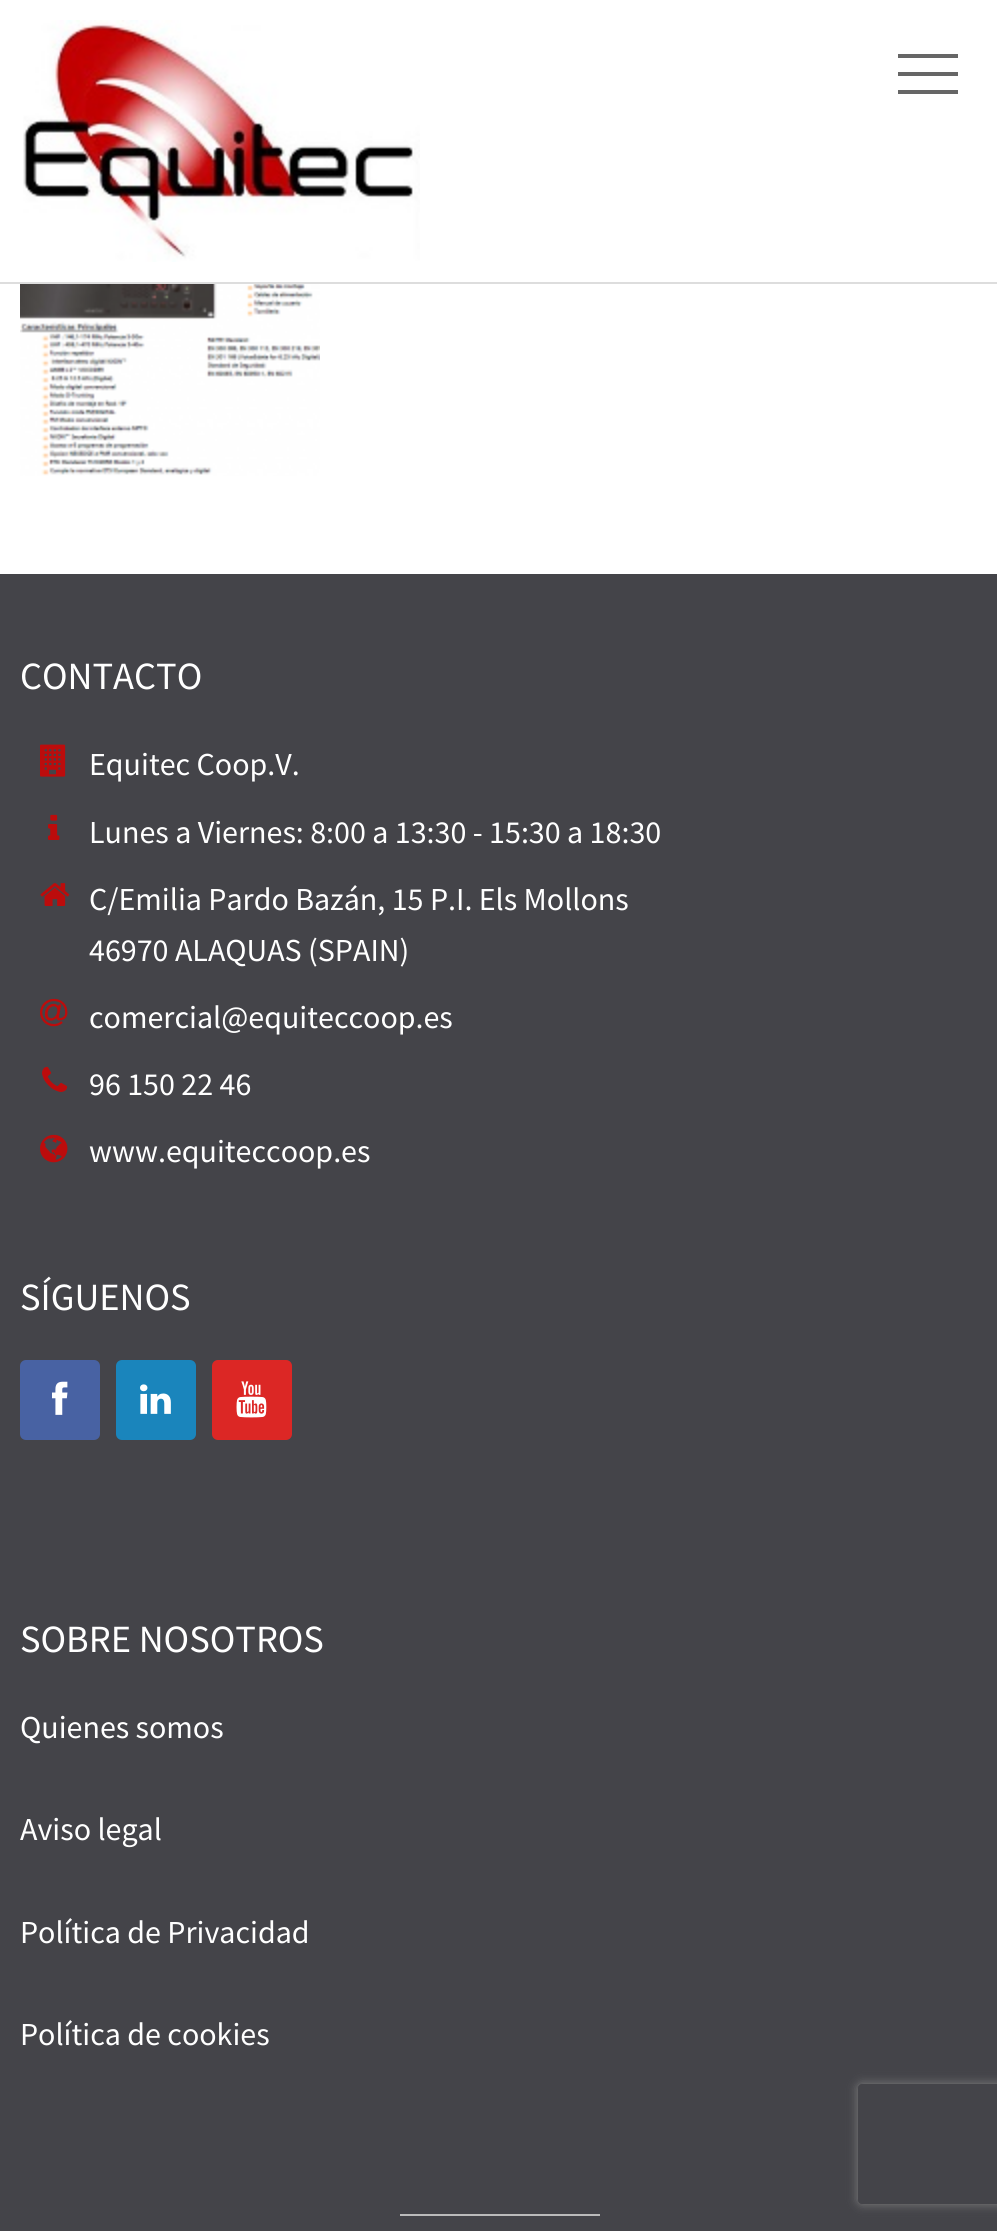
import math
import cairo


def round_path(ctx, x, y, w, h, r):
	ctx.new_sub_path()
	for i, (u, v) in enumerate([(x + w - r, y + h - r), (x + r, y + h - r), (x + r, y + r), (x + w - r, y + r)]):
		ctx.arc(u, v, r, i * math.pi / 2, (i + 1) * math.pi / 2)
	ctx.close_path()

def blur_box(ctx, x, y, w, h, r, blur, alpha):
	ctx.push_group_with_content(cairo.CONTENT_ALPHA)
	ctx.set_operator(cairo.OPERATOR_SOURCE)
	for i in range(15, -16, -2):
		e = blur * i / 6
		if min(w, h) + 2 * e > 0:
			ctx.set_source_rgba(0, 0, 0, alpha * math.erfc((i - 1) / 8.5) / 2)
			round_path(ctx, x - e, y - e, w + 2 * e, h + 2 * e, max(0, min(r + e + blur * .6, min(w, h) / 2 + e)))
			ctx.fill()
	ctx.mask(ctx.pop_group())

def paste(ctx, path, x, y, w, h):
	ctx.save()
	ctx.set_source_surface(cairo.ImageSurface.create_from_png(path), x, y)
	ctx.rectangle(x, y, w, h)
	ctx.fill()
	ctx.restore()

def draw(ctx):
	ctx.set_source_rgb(1, 1, 1)
	ctx.paint()
	ctx.set_source_rgb(0.867, 0.867, 0.867)
	ctx.rectangle(0, 282, 997, 2)
	ctx.fill()
	paste(ctx, 'media/1.png', 23, 20, 397, 242)
	ctx.set_source_rgb(0.4, 0.4, 0.4)
	ctx.rectangle(898, 54, 60, 4)
	ctx.rectangle(898, 90, 60, 4)
	ctx.rectangle(898, 72, 60, 4)
	ctx.fill()
	paste(ctx, 'media/2.png', 20, 284, 300, 192)
	ctx.set_source_rgb(0.267, 0.267, 0.286)
	ctx.rectangle(0, 574, 997, 1657)
	ctx.fill()
	ctx.select_font_face('Source Sans Pro')
	ctx.set_font_size(38.5)
	ctx.set_source_rgb(1, 1, 1)
	ctx.move_to(20, 689)
	ctx.show_text('CONTACTO')
	paste(ctx, 'media/3.png', 40, 744, 26, 33)
	ctx.set_font_size(32)
	ctx.move_to(89, 775)
	ctx.show_text('Equitec Coop.V.')
	paste(ctx, 'media/4.png', 48, 814, 12, 26)
	ctx.move_to(89, 843)
	ctx.show_text('Lunes a Viernes: 8:00 a 13:30 - 15:30 a 18:30')
	paste(ctx, 'media/5.png', 40, 883, 30, 23)
	ctx.move_to(89, 910)
	ctx.show_text('C/Emilia Pardo Bazán, 15 P.I. Els Mollons')
	ctx.move_to(89, 961)
	ctx.show_text('46970 ALAQUAS (SPAIN)')
	paste(ctx, 'media/6.png', 40, 998, 28, 29)
	ctx.move_to(89, 1028)
	ctx.show_text('comercial@equiteccoop.es')
	paste(ctx, 'media/7.png', 42, 1066, 26, 26)
	ctx.move_to(89, 1095)
	ctx.show_text('96 150 22 46')
	paste(ctx, 'media/8.png', 40, 1134, 28, 29)
	ctx.move_to(89, 1162)
	ctx.show_text('www.equiteccoop.es')
	ctx.set_font_size(38.5)
	ctx.move_to(20, 1310)
	ctx.show_text('SÍGUENOS')
	ctx.set_source_rgb(0.282, 0.384, 0.639)
	round_path(ctx, 20, 1360, 80, 80, 6)
	ctx.fill()
	paste(ctx, 'media/9.png', 52, 1381, 16, 34)
	ctx.set_source_rgb(0.102, 0.522, 0.737)
	round_path(ctx, 116, 1360, 80, 80, 6)
	ctx.fill()
	paste(ctx, 'media/10.png', 140, 1384, 31, 30)
	ctx.set_source_rgb(0.863, 0.153, 0.145)
	round_path(ctx, 212, 1360, 80, 80, 6)
	ctx.fill()
	paste(ctx, 'media/11.png', 236, 1381, 31, 37)
	ctx.set_source_rgb(1, 1, 1)
	ctx.move_to(20, 1652)
	ctx.show_text('SOBRE NOSOTROS')
	ctx.set_font_size(32)
	for x, y, s in [
		(20, 1738, 'Quienes somos'),
		(20, 1840, 'Aviso legal'),
		(20, 1943, 'Política de Privacidad'),
		(20, 2045, 'Política de cookies'),
	]:
		ctx.move_to(x, y)
		ctx.show_text(s)
	ctx.set_source_rgb(0.733, 0.733, 0.733)
	ctx.rectangle(400, 2214, 200, 2)
	ctx.fill()
	ctx.save()
	ctx.set_fill_rule(cairo.FILL_RULE_EVEN_ODD)
	ctx.new_path()
	ctx.move_to(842, 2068)
	ctx.line_to(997, 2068)
	ctx.line_to(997, 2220)
	ctx.line_to(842, 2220)
	ctx.close_path()
	ctx.move_to(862, 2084)
	ctx.line_to(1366, 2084)
	ctx.curve_to(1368, 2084, 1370, 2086, 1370, 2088)
	ctx.line_to(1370, 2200)
	ctx.curve_to(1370, 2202, 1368, 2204, 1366, 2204)
	ctx.line_to(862, 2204)
	ctx.curve_to(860, 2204, 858, 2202, 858, 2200)
	ctx.line_to(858, 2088)
	ctx.curve_to(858, 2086, 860, 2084, 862, 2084)
	ctx.close_path()
	ctx.clip()
	ctx.set_source_rgb(0.502, 0.502, 0.502)
	blur_box(ctx, 858, 2084, 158, 120, 4, 5, 1)
	ctx.restore()


surface = cairo.ImageSurface(cairo.FORMAT_RGB24, 997, 2231)
ctx = cairo.Context(surface)
options = cairo.FontOptions()
options.set_hint_metrics(cairo.HINT_METRICS_OFF)
options.set_hint_style(cairo.HINT_STYLE_NONE)
ctx.set_font_options(options)
ctx.set_miter_limit(4)
draw(ctx)
surface.write_to_png('image.png')
